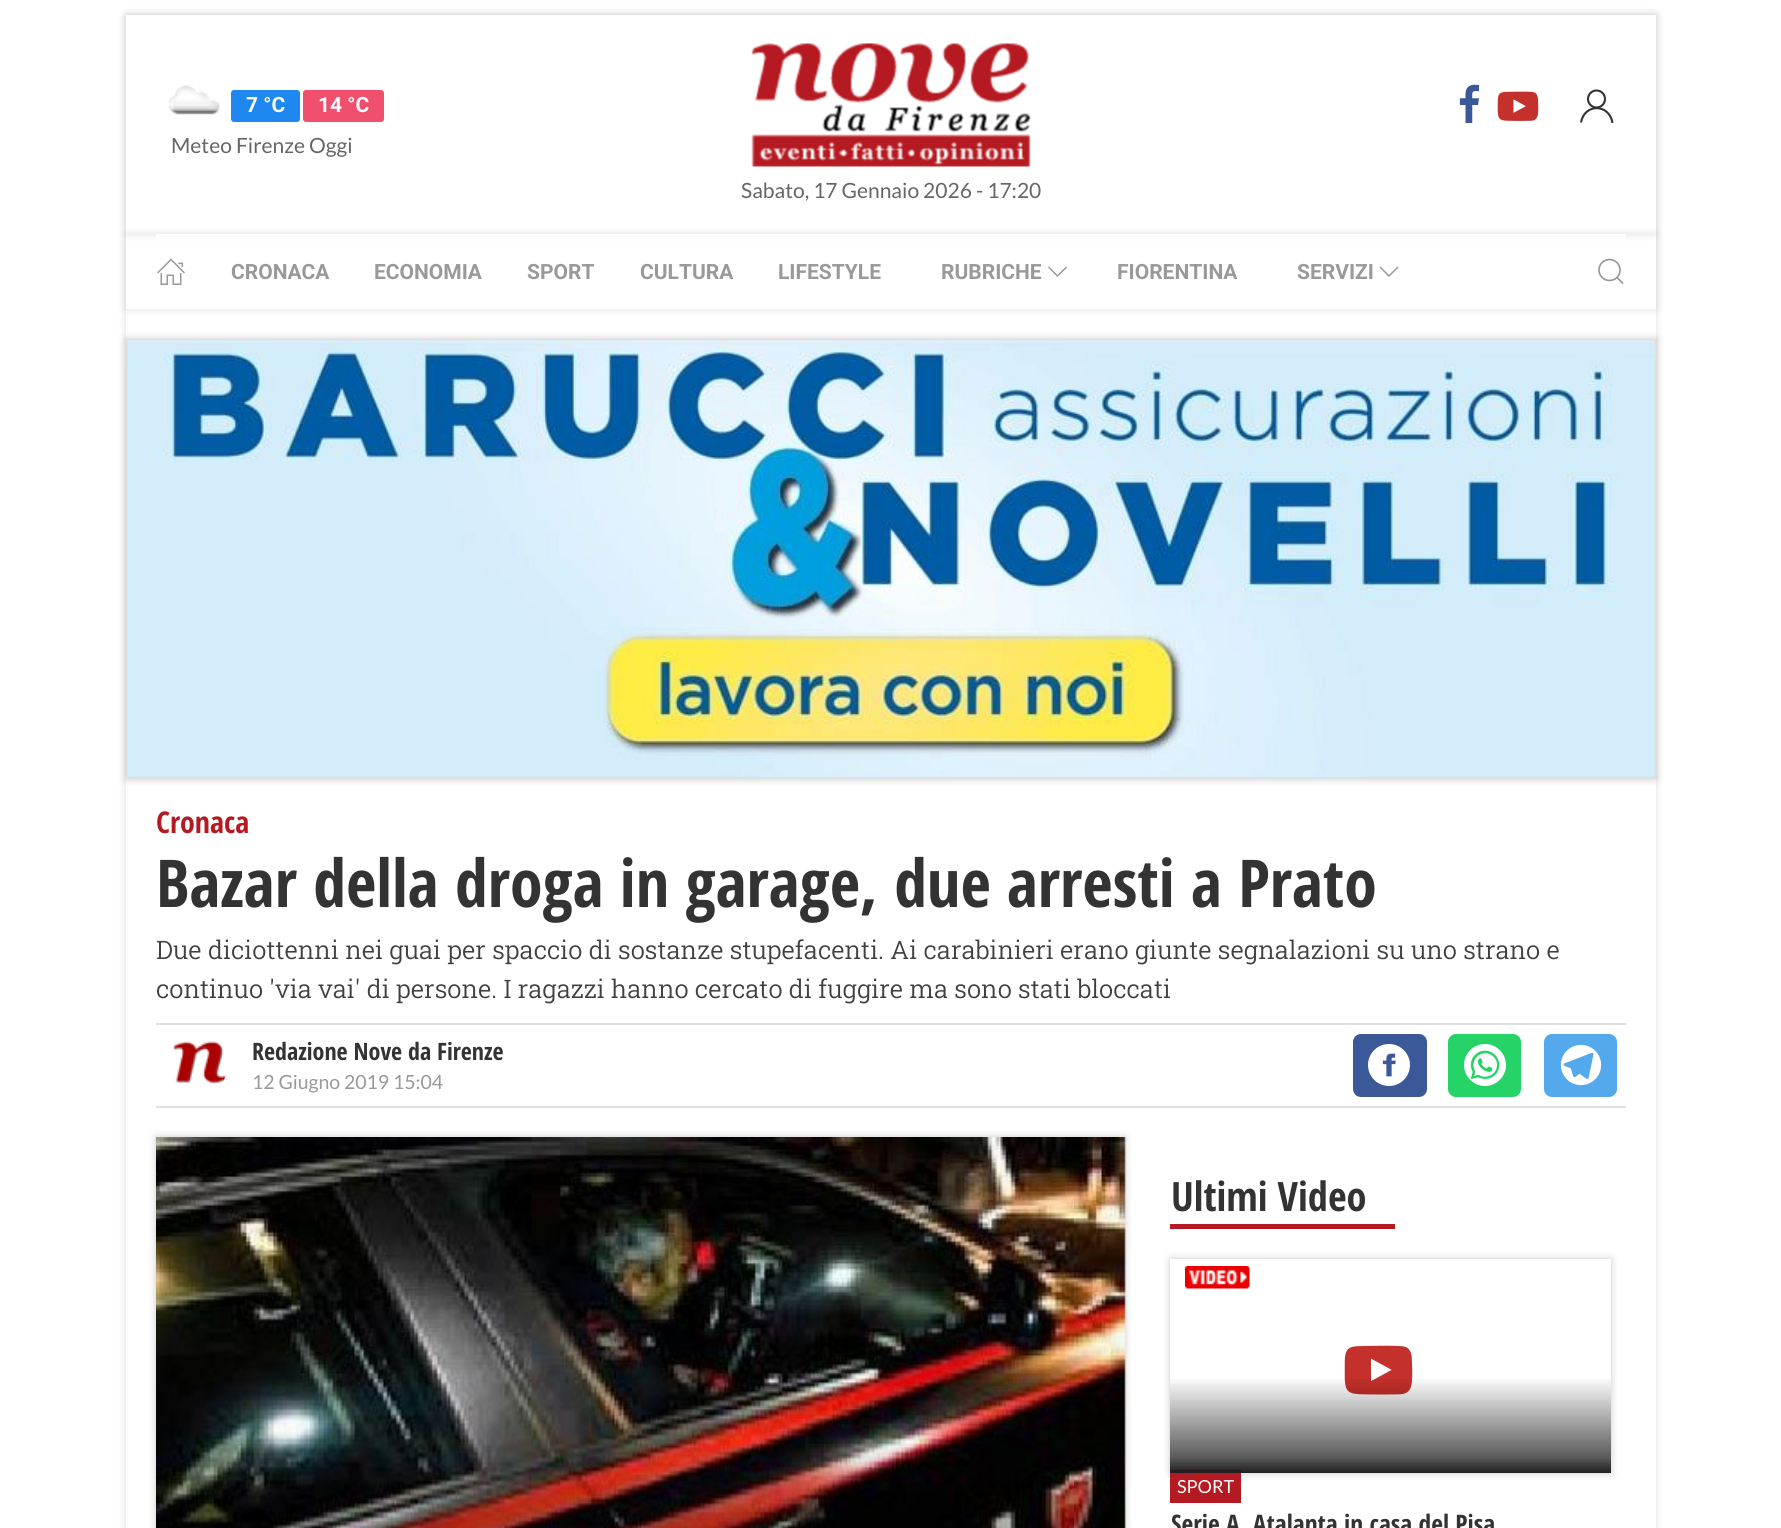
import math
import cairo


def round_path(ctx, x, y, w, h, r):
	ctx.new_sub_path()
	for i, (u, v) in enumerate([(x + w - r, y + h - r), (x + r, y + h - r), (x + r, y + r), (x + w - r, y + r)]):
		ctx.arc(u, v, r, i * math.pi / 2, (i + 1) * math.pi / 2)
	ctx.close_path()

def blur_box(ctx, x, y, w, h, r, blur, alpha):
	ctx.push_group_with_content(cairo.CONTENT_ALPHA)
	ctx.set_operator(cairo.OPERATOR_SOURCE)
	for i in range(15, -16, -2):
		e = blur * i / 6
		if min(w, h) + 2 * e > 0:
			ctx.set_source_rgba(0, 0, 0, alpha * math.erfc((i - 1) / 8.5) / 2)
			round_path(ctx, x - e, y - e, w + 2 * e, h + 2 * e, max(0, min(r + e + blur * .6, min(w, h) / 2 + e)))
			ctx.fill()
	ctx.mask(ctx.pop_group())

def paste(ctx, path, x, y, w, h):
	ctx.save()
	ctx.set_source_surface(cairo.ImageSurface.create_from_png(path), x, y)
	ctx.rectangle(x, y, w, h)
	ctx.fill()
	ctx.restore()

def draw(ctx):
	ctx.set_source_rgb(1, 1, 1)
	ctx.paint()
	ctx.save()
	ctx.set_fill_rule(cairo.FILL_RULE_EVEN_ODD)
	ctx.new_path()
	ctx.move_to(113, 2)
	ctx.line_to(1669, 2)
	ctx.line_to(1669, 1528)
	ctx.line_to(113, 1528)
	ctx.close_path()
	ctx.move_to(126, 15)
	ctx.line_to(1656, 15)
	ctx.line_to(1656, 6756)
	ctx.line_to(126, 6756)
	ctx.close_path()
	ctx.clip()
	ctx.set_source_rgb(0.588, 0.588, 0.588)
	blur_box(ctx, 126, 15, 1530, 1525, 0, 4, 0.3)
	ctx.restore()
	ctx.save()
	ctx.set_fill_rule(cairo.FILL_RULE_EVEN_ODD)
	ctx.new_path()
	ctx.move_to(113, 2)
	ctx.line_to(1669, 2)
	ctx.line_to(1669, 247)
	ctx.line_to(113, 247)
	ctx.close_path()
	ctx.move_to(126, 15)
	ctx.line_to(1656, 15)
	ctx.line_to(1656, 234)
	ctx.line_to(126, 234)
	ctx.close_path()
	ctx.clip()
	ctx.set_source_rgb(0.588, 0.588, 0.588)
	blur_box(ctx, 126, 15, 1530, 219, 0, 4, 0.3)
	ctx.restore()
	paste(ctx, 'media/1.png', 168, 85, 53, 30)
	ctx.set_source_rgb(0.118, 0.529, 0.941)
	round_path(ctx, 231, 90, 69, 32, 3)
	ctx.fill()
	ctx.select_font_face('Roboto', cairo.FONT_SLANT_NORMAL, cairo.FONT_WEIGHT_BOLD)
	ctx.set_font_size(21)
	ctx.set_source_rgb(1, 1, 1)
	ctx.move_to(246, 112)
	ctx.show_text('7 °C')
	ctx.set_source_rgb(0.941, 0.314, 0.431)
	round_path(ctx, 303, 90, 81, 32, 3)
	ctx.fill()
	ctx.set_source_rgb(1, 1, 1)
	ctx.move_to(318, 112)
	ctx.show_text('14 °C')
	ctx.select_font_face('Lato')
	ctx.set_source_rgb(0.4, 0.4, 0.4)
	ctx.move_to(171, 153)
	ctx.show_text('Meteo Firenze Oggi')
	paste(ctx, 'media/2.png', 751, 43, 280, 124)
	paste(ctx, 'media/3.png', 1459, 84, 20, 39)
	paste(ctx, 'media/4.png', 1497, 91, 42, 30)
	ctx.arc(1596.5, 99, 8.5, 0, 2 * math.pi)
	ctx.set_source_rgb(0.2, 0.2, 0.2)
	ctx.set_line_width(2.1)
	ctx.stroke()
	ctx.new_path()
	ctx.move_to(1581, 122.5)
	ctx.curve_to(1584.5, 103, 1609.5, 103.5, 1612.5, 123)
	ctx.stroke()
	ctx.set_source_rgb(0.4, 0.4, 0.4)
	ctx.move_to(741, 198)
	ctx.show_text('Sabato, 17 Gennaio 2026 - 17:20')
	ctx.save()
	ctx.set_fill_rule(cairo.FILL_RULE_EVEN_ODD)
	ctx.new_path()
	ctx.move_to(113, 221)
	ctx.line_to(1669, 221)
	ctx.line_to(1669, 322)
	ctx.line_to(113, 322)
	ctx.close_path()
	ctx.move_to(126, 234)
	ctx.line_to(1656, 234)
	ctx.line_to(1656, 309)
	ctx.line_to(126, 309)
	ctx.close_path()
	ctx.clip()
	ctx.set_source_rgb(0.588, 0.588, 0.588)
	blur_box(ctx, 126, 234, 1530, 75, 0, 4, 0.3)
	ctx.restore()
	ctx.set_source_rgb(1, 1, 1)
	ctx.rectangle(156, 234, 1470, 6)
	ctx.fill()
	paste(ctx, 'media/5.png', 157, 258, 28, 27)
	ctx.select_font_face('Roboto', cairo.FONT_SLANT_NORMAL, cairo.FONT_WEIGHT_BOLD)
	ctx.set_source_rgb(0.6, 0.6, 0.6)
	for x, y, s in [
		(231, 279, 'CRONACA'),
		(374, 279, 'ECONOMIA'),
		(527, 279, 'SPORT'),
		(640, 279, 'CULTURA'),
		(778, 279, 'LIFESTYLE'),
		(941, 279, 'RUBRICHE'),
	]:
		ctx.move_to(x, y)
		ctx.show_text(s)
	ctx.new_path()
	ctx.move_to(1066.5, 267)
	ctx.line_to(1057.5, 276)
	ctx.line_to(1048.5, 267)
	ctx.set_line_width(1.5)
	ctx.stroke()
	ctx.move_to(1117, 279)
	ctx.show_text('FIORENTINA')
	ctx.move_to(1297, 279)
	ctx.show_text('SERVIZI')
	ctx.new_path()
	ctx.move_to(1398, 267)
	ctx.line_to(1389, 276)
	ctx.line_to(1380, 267)
	ctx.stroke()
	ctx.arc(1609.5, 270, 10.5, 0, 2 * math.pi)
	ctx.set_line_width(1.7)
	ctx.stroke()
	ctx.new_path()
	ctx.move_to(1617, 277.5)
	ctx.line_to(1623, 283.5)
	ctx.close_path()
	ctx.stroke()
	ctx.set_source_rgb(0.588, 0.588, 0.588)
	blur_box(ctx, 126, 339, 1530, 440, 0, 4, 0.5)
	ctx.rectangle(127, 340, 1528, 438)
	ctx.set_source_rgb(0.878, 0.878, 0.878)
	ctx.set_line_width(2)
	ctx.stroke()
	paste(ctx, 'media/6.png', 127, 340, 1528, 437)
	ctx.select_font_face('Open Sans Condensed', cairo.FONT_SLANT_NORMAL, cairo.FONT_WEIGHT_BOLD)
	ctx.set_font_size(30)
	ctx.set_source_rgb(0.71, 0.098, 0.129)
	ctx.move_to(156, 833)
	ctx.show_text('Cronaca')
	ctx.set_font_size(66)
	ctx.set_source_rgb(0.2, 0.2, 0.2)
	ctx.move_to(156, 907)
	ctx.show_text('Bazar della droga in garage, due arresti a Prato')
	ctx.select_font_face('Roboto Slab Light')
	ctx.set_font_size(25.5)
	ctx.set_source_rgb(0.251, 0.251, 0.251)
	ctx.move_to(156, 959)
	ctx.show_text('Due diciottenni nei guai per spaccio di sostanze stupefacenti. Ai carabinieri erano giunte segnalazioni su uno strano e')
	ctx.move_to(156, 998)
	ctx.show_text('continuo \'via vai\' di persone. I ragazzi hanno cercato di fuggire ma sono stati bloccati')
	ctx.set_source_rgb(0.878, 0.878, 0.878)
	ctx.rectangle(156, 1023, 1470, 2)
	ctx.fill()
	ctx.rectangle(156, 1106, 1470, 2)
	ctx.fill()
	paste(ctx, 'media/7.png', 172, 1041, 54, 43)
	ctx.select_font_face('Open Sans Condensed', cairo.FONT_SLANT_NORMAL, cairo.FONT_WEIGHT_BOLD)
	ctx.set_font_size(24)
	ctx.set_source_rgb(0.2, 0.2, 0.2)
	ctx.move_to(252, 1060)
	ctx.show_text('Redazione Nove da Firenze')
	ctx.select_font_face('Lato')
	ctx.set_font_size(19.5)
	ctx.set_source_rgb(0.6, 0.6, 0.6)
	ctx.move_to(252, 1089)
	ctx.show_text('12 Giugno 2019 15:04')
	ctx.set_source_rgb(0.231, 0.349, 0.596)
	round_path(ctx, 1353, 1034, 74, 63, 8)
	ctx.fill()
	paste(ctx, 'media/8.png', 1368, 1044, 42, 42)
	ctx.set_source_rgb(0.145, 0.827, 0.4)
	round_path(ctx, 1448, 1034, 73, 63, 8)
	ctx.fill()
	paste(ctx, 'media/9.png', 1464, 1044, 42, 42)
	ctx.set_source_rgb(0.329, 0.663, 0.922)
	round_path(ctx, 1544, 1034, 73, 63, 8)
	ctx.fill()
	paste(ctx, 'media/10.png', 1560, 1044, 42, 42)
	ctx.set_source_rgb(0.588, 0.588, 0.588)
	blur_box(ctx, 156, 1137, 969, 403, 0, 4, 0.5)
	paste(ctx, 'media/11.png', 156, 1137, 970, 391)
	gradient = cairo.LinearGradient(641, 1137, 641, 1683)
	gradient.add_color_stop_rgba(0.55, 0, 0, 0, 0)
	gradient.add_color_stop_rgba(0.93, 0, 0, 0, 0.65)
	gradient.add_color_stop_rgba(1, 0.129, 0.129, 0.129, 1)
	ctx.set_source(gradient)
	ctx.rectangle(156, 1444, 969, 84)
	ctx.fill()
	ctx.select_font_face('Open Sans Condensed', cairo.FONT_SLANT_NORMAL, cairo.FONT_WEIGHT_BOLD)
	ctx.set_font_size(40.5)
	ctx.set_source_rgb(0.2, 0.2, 0.2)
	ctx.move_to(1171, 1211)
	ctx.show_text('Ultimi Video')
	ctx.set_source_rgb(0.71, 0.098, 0.129)
	ctx.rectangle(1170, 1224, 225, 5)
	ctx.fill()
	ctx.save()
	ctx.set_fill_rule(cairo.FILL_RULE_EVEN_ODD)
	ctx.new_path()
	ctx.move_to(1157, 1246)
	ctx.line_to(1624, 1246)
	ctx.line_to(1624, 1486)
	ctx.line_to(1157, 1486)
	ctx.close_path()
	ctx.move_to(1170, 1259)
	ctx.line_to(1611, 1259)
	ctx.line_to(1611, 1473)
	ctx.line_to(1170, 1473)
	ctx.close_path()
	ctx.clip()
	ctx.set_source_rgb(0.588, 0.588, 0.588)
	blur_box(ctx, 1170, 1259, 441, 214, 0, 4, 0.5)
	ctx.restore()
	paste(ctx, 'media/12.png', 1185, 1266, 65, 23)
	paste(ctx, 'media/13.png', 1344, 1345, 69, 50)
	ctx.rectangle(1170, 1470, 71, 33)
	ctx.fill()
	gradient = cairo.LinearGradient(1391, 1259, 1391, 1473)
	gradient.add_color_stop_rgba(0.55, 0, 0, 0, 0)
	gradient.add_color_stop_rgba(0.93, 0, 0, 0, 0.65)
	gradient.add_color_stop_rgba(1, 0.129, 0.129, 0.129, 1)
	ctx.set_source(gradient)
	ctx.rectangle(1170, 1379, 441, 94)
	ctx.fill()
	ctx.select_font_face('Lato')
	ctx.set_font_size(18)
	ctx.set_source_rgb(1, 1, 1)
	ctx.move_to(1177, 1493)
	ctx.show_text('SPORT')
	ctx.select_font_face('Open Sans Condensed', cairo.FONT_SLANT_NORMAL, cairo.FONT_WEIGHT_BOLD)
	ctx.set_font_size(25.5)
	ctx.set_source_rgb(0.2, 0.2, 0.2)
	ctx.move_to(1171, 1533)
	ctx.show_text('Serie A, Atalanta in casa del Pisa')


surface = cairo.ImageSurface(cairo.FORMAT_RGB24, 1781, 1528)
ctx = cairo.Context(surface)
options = cairo.FontOptions()
options.set_hint_metrics(cairo.HINT_METRICS_OFF)
options.set_hint_style(cairo.HINT_STYLE_NONE)
ctx.set_font_options(options)
ctx.set_miter_limit(4)
draw(ctx)
surface.write_to_png('image.png')
